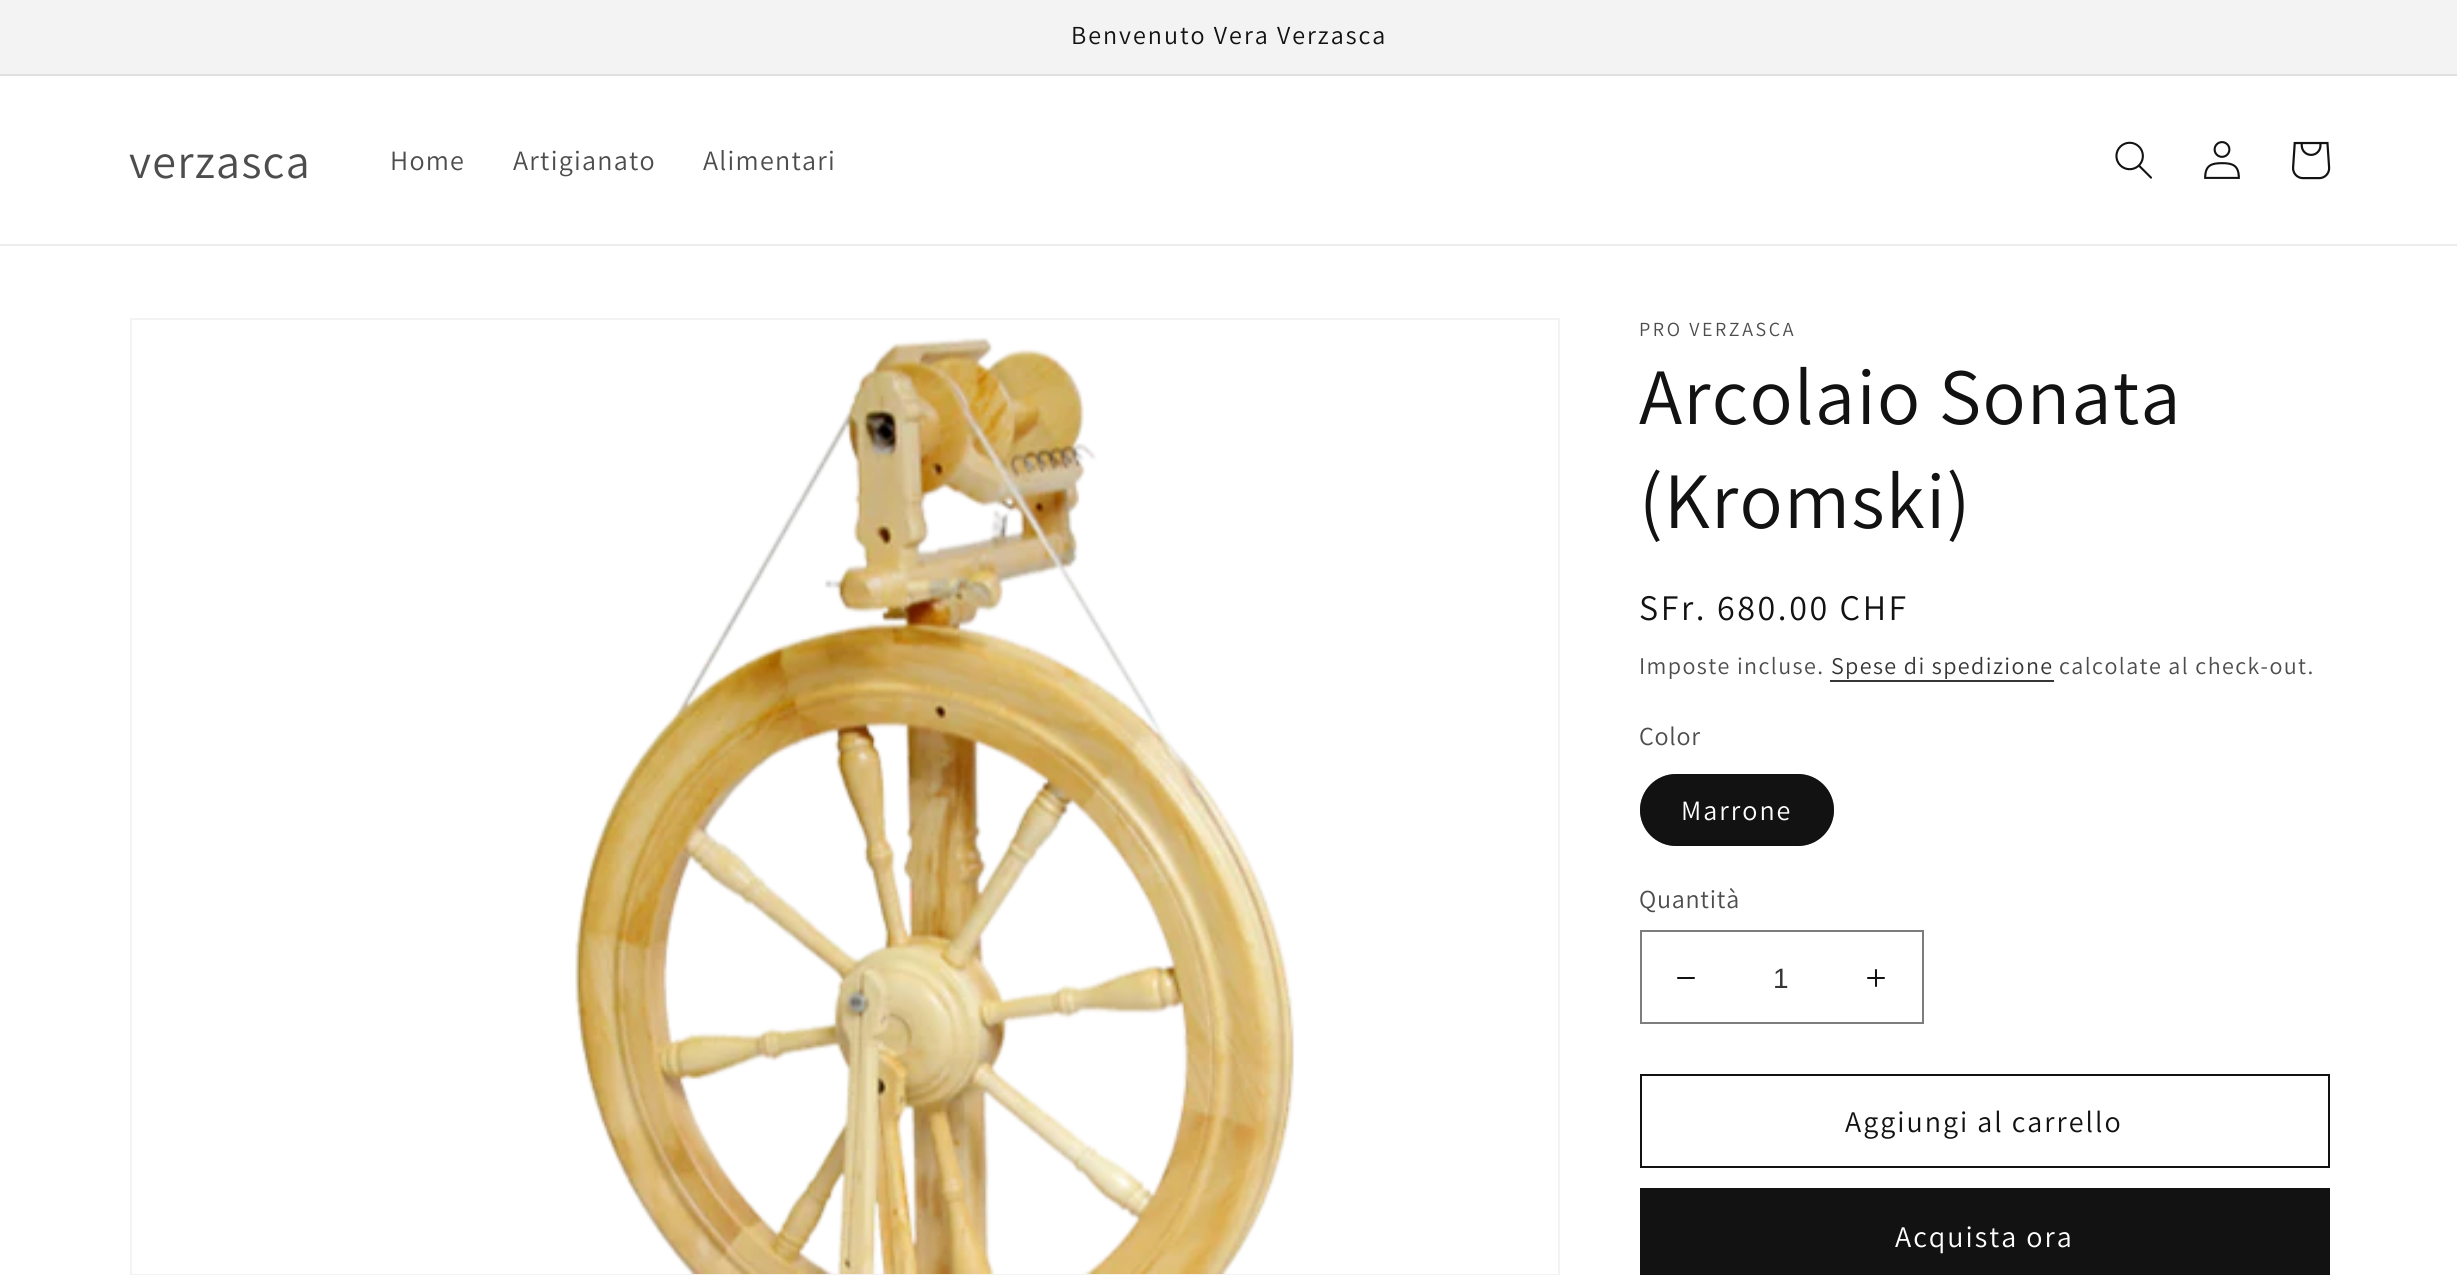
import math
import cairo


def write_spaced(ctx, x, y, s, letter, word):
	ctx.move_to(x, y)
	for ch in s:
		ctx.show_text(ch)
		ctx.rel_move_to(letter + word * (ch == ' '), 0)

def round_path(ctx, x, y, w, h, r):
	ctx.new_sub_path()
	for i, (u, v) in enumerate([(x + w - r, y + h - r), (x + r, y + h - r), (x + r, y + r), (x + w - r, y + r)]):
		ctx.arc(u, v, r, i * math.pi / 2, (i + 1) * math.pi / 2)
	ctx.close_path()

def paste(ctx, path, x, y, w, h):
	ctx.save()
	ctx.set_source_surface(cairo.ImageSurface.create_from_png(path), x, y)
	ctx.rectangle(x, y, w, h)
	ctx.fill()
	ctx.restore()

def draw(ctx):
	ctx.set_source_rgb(1, 1, 1)
	ctx.paint()
	ctx.set_source_rgb(0.953, 0.953, 0.953)
	ctx.rectangle(0, 0, 2457, 74)
	ctx.fill()
	ctx.set_source_rgb(0.882, 0.882, 0.882)
	ctx.rectangle(0, 74, 2457, 2)
	ctx.fill()
	ctx.select_font_face('Assistant')
	ctx.set_font_size(26)
	ctx.set_source_rgb(0.071, 0.071, 0.071)
	write_spaced(ctx, 1071, 44, 'Benvenuto Vera Verzasca', 2, 0)
	ctx.set_source_rgb(0.925, 0.925, 0.925)
	ctx.rectangle(0, 244, 2457, 2)
	ctx.fill()
	ctx.set_font_size(48)
	ctx.set_source_rgb(0.302, 0.302, 0.302)
	write_spaced(ctx, 129, 178, 'verzasca', 1.25, 0)
	ctx.set_font_size(28)
	for x, y, s in [
		(390, 170, 'Home'),
		(513, 170, 'Artigianato'),
		(703, 170, 'Alimentari'),
	]:
		write_spaced(ctx, x, y, s, 1.25, 0)
	paste(ctx, 'media/1.png', 2115, 141, 37, 38)
	paste(ctx, 'media/2.png', 2204, 141, 36, 38)
	paste(ctx, 'media/3.png', 2292, 141, 39, 39)
	ctx.rectangle(131, 319, 1428, 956)
	ctx.set_source_rgb(0.953, 0.953, 0.953)
	ctx.stroke()
	paste(ctx, 'media/4.png', 575, 337, 720, 937)
	ctx.set_font_size(20)
	ctx.set_source_rgb(0.302, 0.302, 0.302)
	write_spaced(ctx, 1639, 336, 'PRO VERZASCA', 2.6, 0)
	ctx.set_font_size(80)
	ctx.set_source_rgb(0.071, 0.071, 0.071)
	write_spaced(ctx, 1639, 424, 'Arcolaio Sonata', 1.25, 0)
	write_spaced(ctx, 1639, 528, '(Kromski)', 1.25, 0)
	ctx.set_font_size(36)
	write_spaced(ctx, 1639, 620, 'SFr. 680.00 CHF', 2.6, 0)
	ctx.set_font_size(24)
	ctx.set_source_rgb(0.302, 0.302, 0.302)
	write_spaced(ctx, 1639, 674, 'Imposte incluse.', 1.4, 0)
	ctx.set_source_rgb(0.212, 0.212, 0.212)
	write_spaced(ctx, 1831, 674, 'Spese di spedizione', 1.4, 0)
	ctx.rectangle(1830, 680, 224, 2)
	ctx.fill()
	ctx.set_source_rgb(0.302, 0.302, 0.302)
	write_spaced(ctx, 2059, 674, 'calcolate al check-out.', 1.4, 0)
	ctx.set_font_size(26)
	write_spaced(ctx, 1639, 745, 'Color', 0.75, 0)
	ctx.set_source_rgb(0.071, 0.071, 0.071)
	round_path(ctx, 1640, 774, 194, 72, 36)
	ctx.fill()
	round_path(ctx, 1641, 775, 192, 70, 35)
	ctx.set_source_rgba(0.071, 0.071, 0.071, 0.55)
	ctx.stroke()
	ctx.set_font_size(28)
	ctx.set_source_rgb(1, 1, 1)
	write_spaced(ctx, 1681, 820, 'Marrone', 2, 0)
	ctx.set_font_size(26)
	ctx.set_source_rgb(0.302, 0.302, 0.302)
	write_spaced(ctx, 1639, 908, 'Quantità', 0.75, 0)
	paste(ctx, 'media/5.png', 1677, 977, 18, 2)
	paste(ctx, 'media/6.png', 1867, 969, 18, 18)
	ctx.rectangle(1641, 931, 282, 92)
	ctx.set_source_rgb(0.49, 0.49, 0.49)
	ctx.stroke()
	ctx.select_font_face('Liberation Sans')
	ctx.set_font_size(28)
	ctx.set_source_rgb(0.212, 0.212, 0.212)
	ctx.move_to(1773, 988)
	ctx.show_text('1')
	ctx.rectangle(1641, 1075, 688, 92)
	ctx.set_source_rgb(0.071, 0.071, 0.071)
	ctx.stroke()
	ctx.select_font_face('Assistant')
	ctx.set_font_size(30)
	write_spaced(ctx, 1845, 1132, 'Aggiungi al carrello', 2, 0)
	ctx.rectangle(1640, 1188, 690, 87)
	ctx.fill()
	ctx.set_source_rgb(1, 1, 1)
	write_spaced(ctx, 1895, 1247, 'Acquista ora', 2, 0)


surface = cairo.ImageSurface(cairo.FORMAT_RGB24, 2457, 1275)
ctx = cairo.Context(surface)
options = cairo.FontOptions()
options.set_hint_metrics(cairo.HINT_METRICS_OFF)
options.set_hint_style(cairo.HINT_STYLE_NONE)
ctx.set_font_options(options)
ctx.set_miter_limit(4)
draw(ctx)
surface.write_to_png('image.png')
